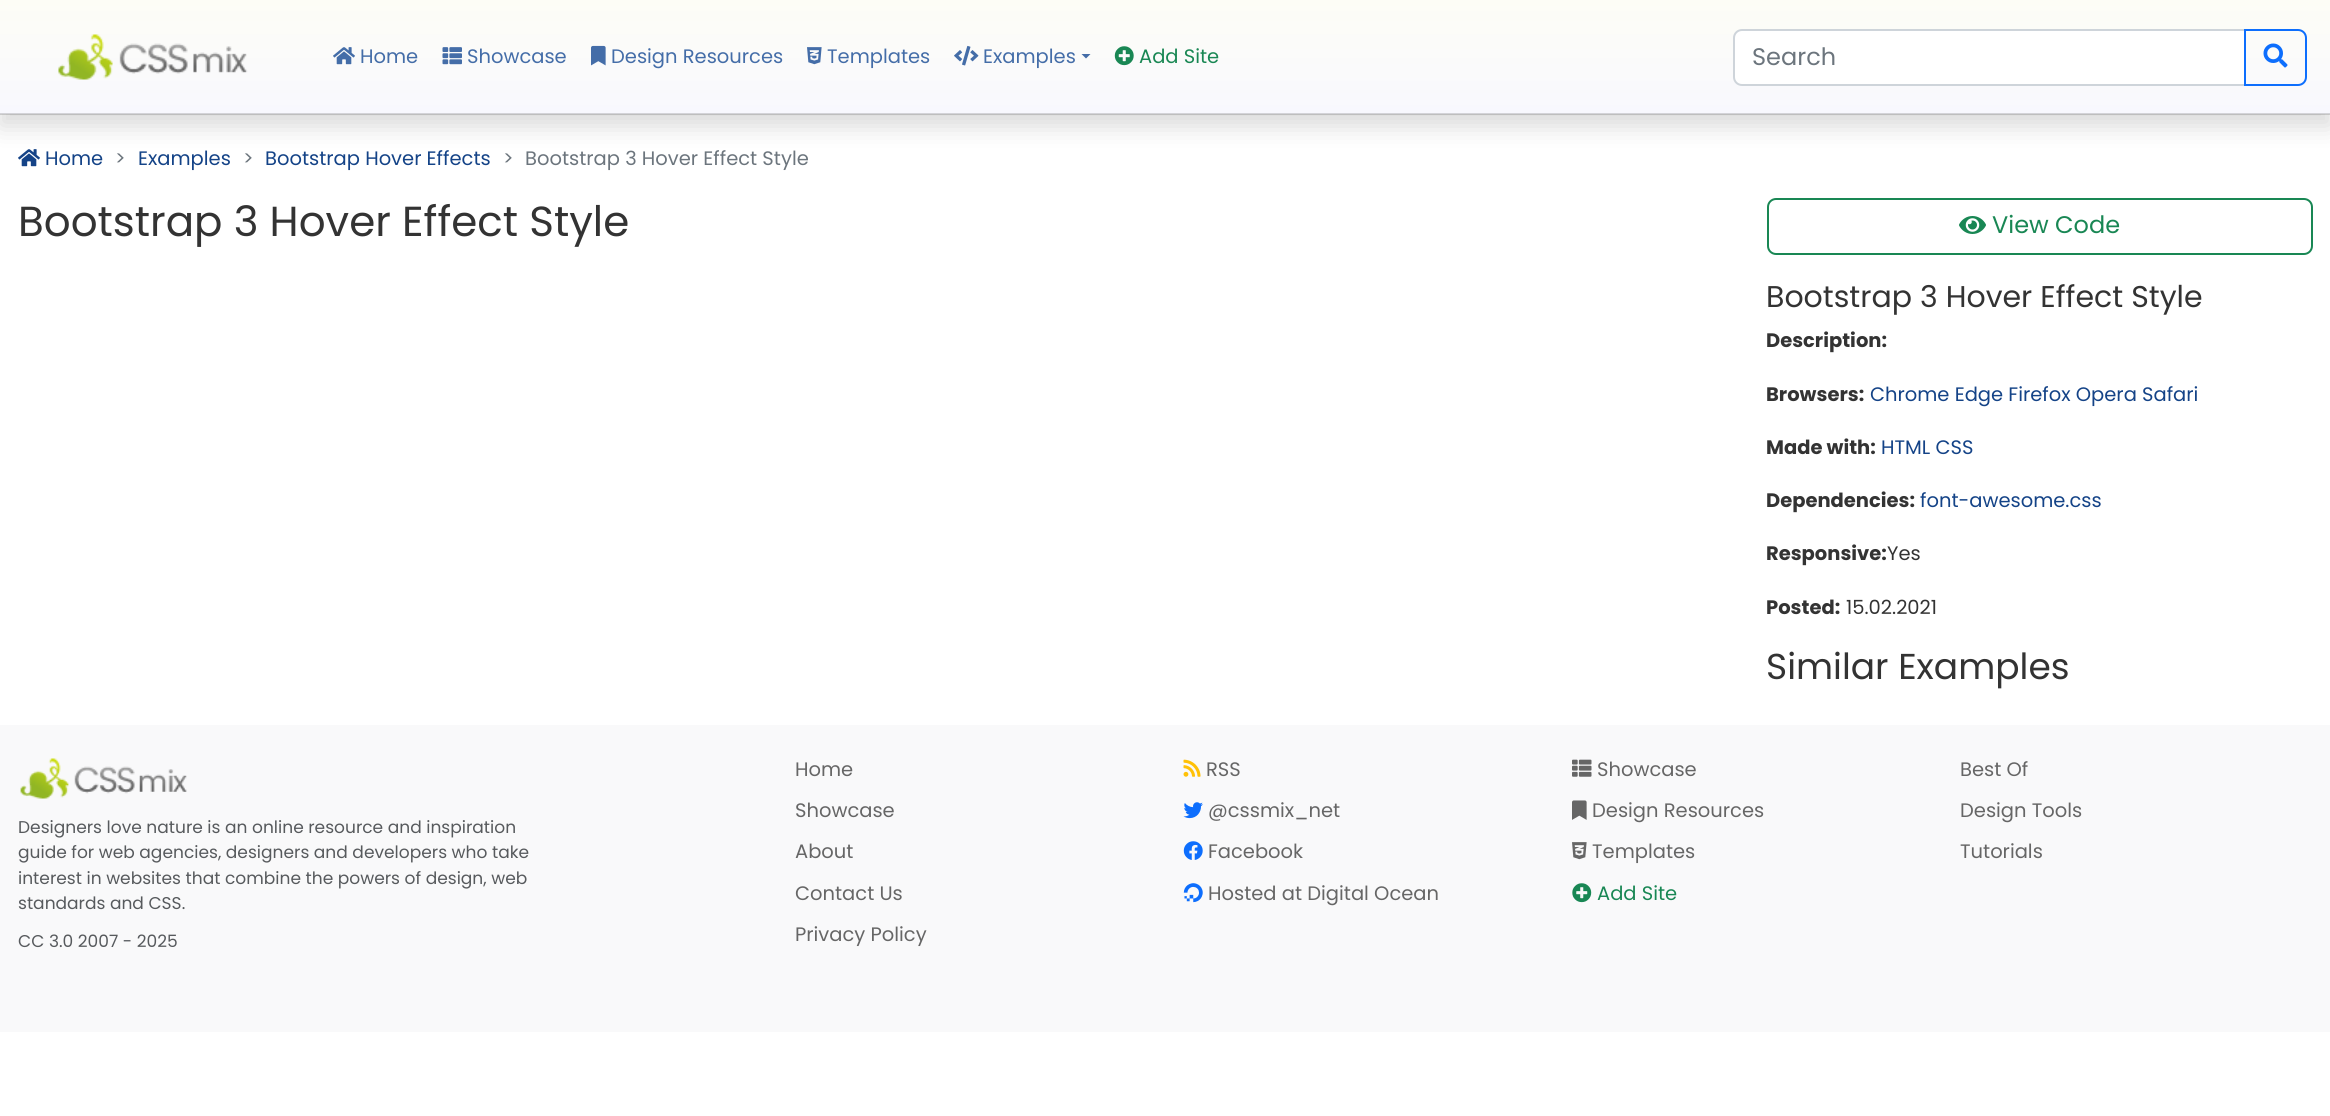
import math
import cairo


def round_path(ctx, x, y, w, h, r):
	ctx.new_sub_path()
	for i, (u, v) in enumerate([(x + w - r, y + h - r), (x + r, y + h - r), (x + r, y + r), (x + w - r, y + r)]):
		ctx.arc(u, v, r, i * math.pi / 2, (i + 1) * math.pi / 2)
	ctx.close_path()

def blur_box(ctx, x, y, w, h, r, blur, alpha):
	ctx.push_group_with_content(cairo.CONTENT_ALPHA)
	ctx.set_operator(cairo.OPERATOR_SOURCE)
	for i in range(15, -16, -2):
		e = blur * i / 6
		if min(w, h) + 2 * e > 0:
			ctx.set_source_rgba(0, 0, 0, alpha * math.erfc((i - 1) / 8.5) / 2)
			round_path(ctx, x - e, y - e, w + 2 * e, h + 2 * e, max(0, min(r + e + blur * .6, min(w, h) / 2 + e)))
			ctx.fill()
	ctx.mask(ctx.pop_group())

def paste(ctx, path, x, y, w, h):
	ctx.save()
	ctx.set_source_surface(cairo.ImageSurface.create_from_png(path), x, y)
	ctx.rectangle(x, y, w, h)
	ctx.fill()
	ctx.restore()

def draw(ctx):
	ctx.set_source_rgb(1, 1, 1)
	ctx.paint()
	paste(ctx, 'media/9.png', 18, 149, 22, 18)
	ctx.set_source_rgb(0, 0, 0)
	blur_box(ctx, 0, 12, 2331, 114, 0, 12, 0.15)
	gradient = cairo.LinearGradient(1166, 0, 1166, 114)
	gradient.add_color_stop_rgba(0, 0.992, 0.992, 0.965, 1)
	gradient.add_color_stop_rgba(1, 0.973, 0.973, 0.996, 1)
	ctx.set_source(gradient)
	ctx.rectangle(0, 0, 2330, 114)
	ctx.fill()
	ctx.set_source_rgba(0, 0, 0, 0.15)
	ctx.rectangle(0, 113, 2330, 2)
	ctx.fill()
	paste(ctx, 'media/1.png', 58, 34, 190, 46)
	paste(ctx, 'media/2.png', 333, 47, 22, 18)
	ctx.select_font_face('Poppins')
	ctx.set_font_size(19.5)
	ctx.set_source_rgb(0.267, 0.427, 0.659)
	ctx.move_to(360, 63)
	ctx.show_text('Home')
	paste(ctx, 'media/3.png', 442, 47, 20, 18)
	ctx.move_to(467, 63)
	ctx.show_text('Showcase')
	paste(ctx, 'media/4.png', 591, 45, 15, 21)
	ctx.move_to(611, 63)
	ctx.show_text('Design Resources')
	paste(ctx, 'media/5.png', 807, 47, 15, 18)
	ctx.move_to(827, 63)
	ctx.show_text('Templates')
	paste(ctx, 'media/6.png', 954, 45, 25, 21)
	ctx.move_to(983, 63)
	ctx.show_text('Examples')
	ctx.new_path()
	ctx.move_to(1081.5, 54)
	ctx.line_to(1090.5, 54)
	ctx.line_to(1086, 58.5)
	ctx.close_path()
	ctx.fill()
	paste(ctx, 'media/7.png', 1114, 46, 20, 20)
	ctx.set_source_rgb(0.098, 0.529, 0.329)
	ctx.move_to(1139, 63)
	ctx.show_text('Add Site')
	ctx.set_source_rgb(1, 1, 1)
	ctx.new_path()
	ctx.move_to(1742, 30)
	ctx.line_to(2245, 30)
	ctx.line_to(2245, 85)
	ctx.line_to(1742, 85)
	ctx.curve_to(1737.5, 85, 1734, 81.5, 1734, 77)
	ctx.line_to(1734, 38)
	ctx.curve_to(1734, 33.5, 1737.5, 30, 1742, 30)
	ctx.close_path()
	ctx.fill_preserve()
	ctx.set_source_rgb(0.808, 0.831, 0.855)
	ctx.stroke()
	ctx.set_font_size(24)
	ctx.set_source_rgb(0.424, 0.459, 0.49)
	ctx.move_to(1752, 65)
	ctx.show_text('Search')
	ctx.new_path()
	ctx.move_to(2245, 30)
	ctx.line_to(2298, 30)
	ctx.curve_to(2302.5, 30, 2306, 33.5, 2306, 38)
	ctx.line_to(2306, 77)
	ctx.curve_to(2306, 81.5, 2302.5, 85, 2298, 85)
	ctx.line_to(2245, 85)
	ctx.close_path()
	ctx.set_source_rgb(0.051, 0.431, 0.992)
	ctx.stroke()
	paste(ctx, 'media/8.png', 2263, 43, 25, 25)
	ctx.set_font_size(19.5)
	ctx.set_source_rgb(0.082, 0.263, 0.529)
	ctx.move_to(45, 165)
	ctx.show_text('Home')
	ctx.set_source_rgb(0.424, 0.459, 0.49)
	ctx.move_to(115, 165)
	ctx.show_text('>')
	ctx.set_source_rgb(0.082, 0.263, 0.529)
	ctx.move_to(138, 165)
	ctx.show_text('Examples')
	ctx.set_source_rgb(0.424, 0.459, 0.49)
	ctx.move_to(243, 165)
	ctx.show_text('>')
	ctx.set_source_rgb(0.082, 0.263, 0.529)
	ctx.move_to(265, 165)
	ctx.show_text('Bootstrap Hover Effects')
	ctx.set_source_rgb(0.424, 0.459, 0.49)
	ctx.move_to(503, 165)
	ctx.show_text('>')
	ctx.move_to(525, 165)
	ctx.show_text('Bootstrap 3 Hover Effect Style')
	ctx.set_font_size(42)
	ctx.set_source_rgb(0.2, 0.2, 0.2)
	ctx.move_to(18, 236)
	ctx.show_text('Bootstrap 3 Hover Effect Style')
	round_path(ctx, 1768, 199, 544, 55, 8)
	ctx.set_source_rgb(0.098, 0.529, 0.329)
	ctx.stroke()
	paste(ctx, 'media/10.png', 1959, 216, 27, 18)
	ctx.set_font_size(24)
	ctx.move_to(1992, 233)
	ctx.show_text('View Code')
	ctx.set_font_size(30)
	ctx.set_source_rgb(0.2, 0.2, 0.2)
	ctx.move_to(1766, 307)
	ctx.show_text('Bootstrap 3 Hover Effect Style')
	ctx.select_font_face('Poppins', cairo.FONT_SLANT_NORMAL, cairo.FONT_WEIGHT_BOLD)
	ctx.set_font_size(19.5)
	ctx.move_to(1766, 347)
	ctx.show_text('Description:')
	ctx.move_to(1766, 401)
	ctx.show_text('Browsers:')
	ctx.select_font_face('Poppins')
	ctx.set_source_rgb(0.082, 0.263, 0.529)
	ctx.move_to(1870, 401)
	ctx.show_text('Chrome Edge Firefox Opera Safari')
	ctx.select_font_face('Poppins', cairo.FONT_SLANT_NORMAL, cairo.FONT_WEIGHT_BOLD)
	ctx.set_source_rgb(0.2, 0.2, 0.2)
	ctx.move_to(1766, 454)
	ctx.show_text('Made with:')
	ctx.select_font_face('Poppins')
	ctx.set_source_rgb(0.082, 0.263, 0.529)
	ctx.move_to(1881, 454)
	ctx.show_text('HTML CSS')
	ctx.select_font_face('Poppins', cairo.FONT_SLANT_NORMAL, cairo.FONT_WEIGHT_BOLD)
	ctx.set_source_rgb(0.2, 0.2, 0.2)
	ctx.move_to(1766, 507)
	ctx.show_text('Dependencies:')
	ctx.select_font_face('Poppins')
	ctx.set_source_rgb(0.082, 0.263, 0.529)
	ctx.move_to(1920, 507)
	ctx.show_text('font-awesome.css')
	ctx.select_font_face('Poppins', cairo.FONT_SLANT_NORMAL, cairo.FONT_WEIGHT_BOLD)
	ctx.set_source_rgb(0.2, 0.2, 0.2)
	ctx.move_to(1766, 560)
	ctx.show_text('Responsive:')
	ctx.select_font_face('Poppins')
	ctx.move_to(1887, 560)
	ctx.show_text('Yes')
	ctx.select_font_face('Poppins', cairo.FONT_SLANT_NORMAL, cairo.FONT_WEIGHT_BOLD)
	ctx.move_to(1766, 614)
	ctx.show_text('Posted:')
	ctx.select_font_face('Poppins')
	ctx.move_to(1846, 614)
	ctx.show_text('15.02.2021')
	ctx.set_font_size(36)
	ctx.move_to(1766, 679)
	ctx.show_text('Similar Examples')
	ctx.set_source_rgb(0.973, 0.976, 0.98)
	ctx.rectangle(0, 725, 2330, 307)
	ctx.fill()
	paste(ctx, 'media/11.png', 20, 758, 167, 41)
	ctx.set_font_size(17.05)
	ctx.set_source_rgb(0.341, 0.353, 0.365)
	for x, y, s in [
		(18, 833, 'Designers love nature is an online resource and inspiration'),
		(18, 858, 'guide for web agencies, designers and developers who take'),
		(18, 884, 'interest in websites that combine the powers of design, web'),
		(18, 909, 'standards and CSS.'),
		(18, 947, 'CC 3.0 2007 - 2025'),
	]:
		ctx.move_to(x, y)
		ctx.show_text(s)
	ctx.set_font_size(19.5)
	ctx.set_source_rgb(0.4, 0.4, 0.4)
	for x, y, s in [
		(795, 776, 'Home'),
		(795, 817, 'Showcase'),
		(795, 858, 'About'),
		(795, 900, 'Contact Us'),
		(795, 941, 'Privacy Policy'),
	]:
		ctx.move_to(x, y)
		ctx.show_text(s)
	paste(ctx, 'media/12.png', 1183, 759, 18, 18)
	ctx.move_to(1206, 776)
	ctx.show_text('RSS')
	paste(ctx, 'media/13.png', 1183, 802, 20, 17)
	ctx.move_to(1208, 817)
	ctx.show_text('@cssmix_net')
	paste(ctx, 'media/14.png', 1183, 841, 20, 19)
	ctx.move_to(1208, 858)
	ctx.show_text('Facebook')
	paste(ctx, 'media/15.png', 1183, 883, 20, 20)
	ctx.move_to(1208, 900)
	ctx.show_text('Hosted at Digital Ocean')
	paste(ctx, 'media/16.png', 1572, 759, 20, 18)
	ctx.move_to(1597, 776)
	ctx.show_text('Showcase')
	paste(ctx, 'media/17.png', 1572, 800, 15, 20)
	ctx.move_to(1592, 817)
	ctx.show_text('Design Resources')
	paste(ctx, 'media/18.png', 1572, 842, 15, 18)
	ctx.move_to(1592, 858)
	ctx.show_text('Templates')
	paste(ctx, 'media/19.png', 1572, 883, 20, 20)
	ctx.set_source_rgb(0.098, 0.529, 0.329)
	ctx.move_to(1597, 900)
	ctx.show_text('Add Site')
	ctx.set_source_rgb(0.4, 0.4, 0.4)
	for x, y, s in [
		(1960, 776, 'Best Of'),
		(1960, 817, 'Design Tools'),
		(1960, 858, 'Tutorials'),
	]:
		ctx.move_to(x, y)
		ctx.show_text(s)


surface = cairo.ImageSurface(cairo.FORMAT_RGB24, 2330, 1116)
ctx = cairo.Context(surface)
options = cairo.FontOptions()
options.set_hint_metrics(cairo.HINT_METRICS_OFF)
options.set_hint_style(cairo.HINT_STYLE_NONE)
ctx.set_font_options(options)
ctx.set_miter_limit(4)
draw(ctx)
surface.write_to_png('image.png')
